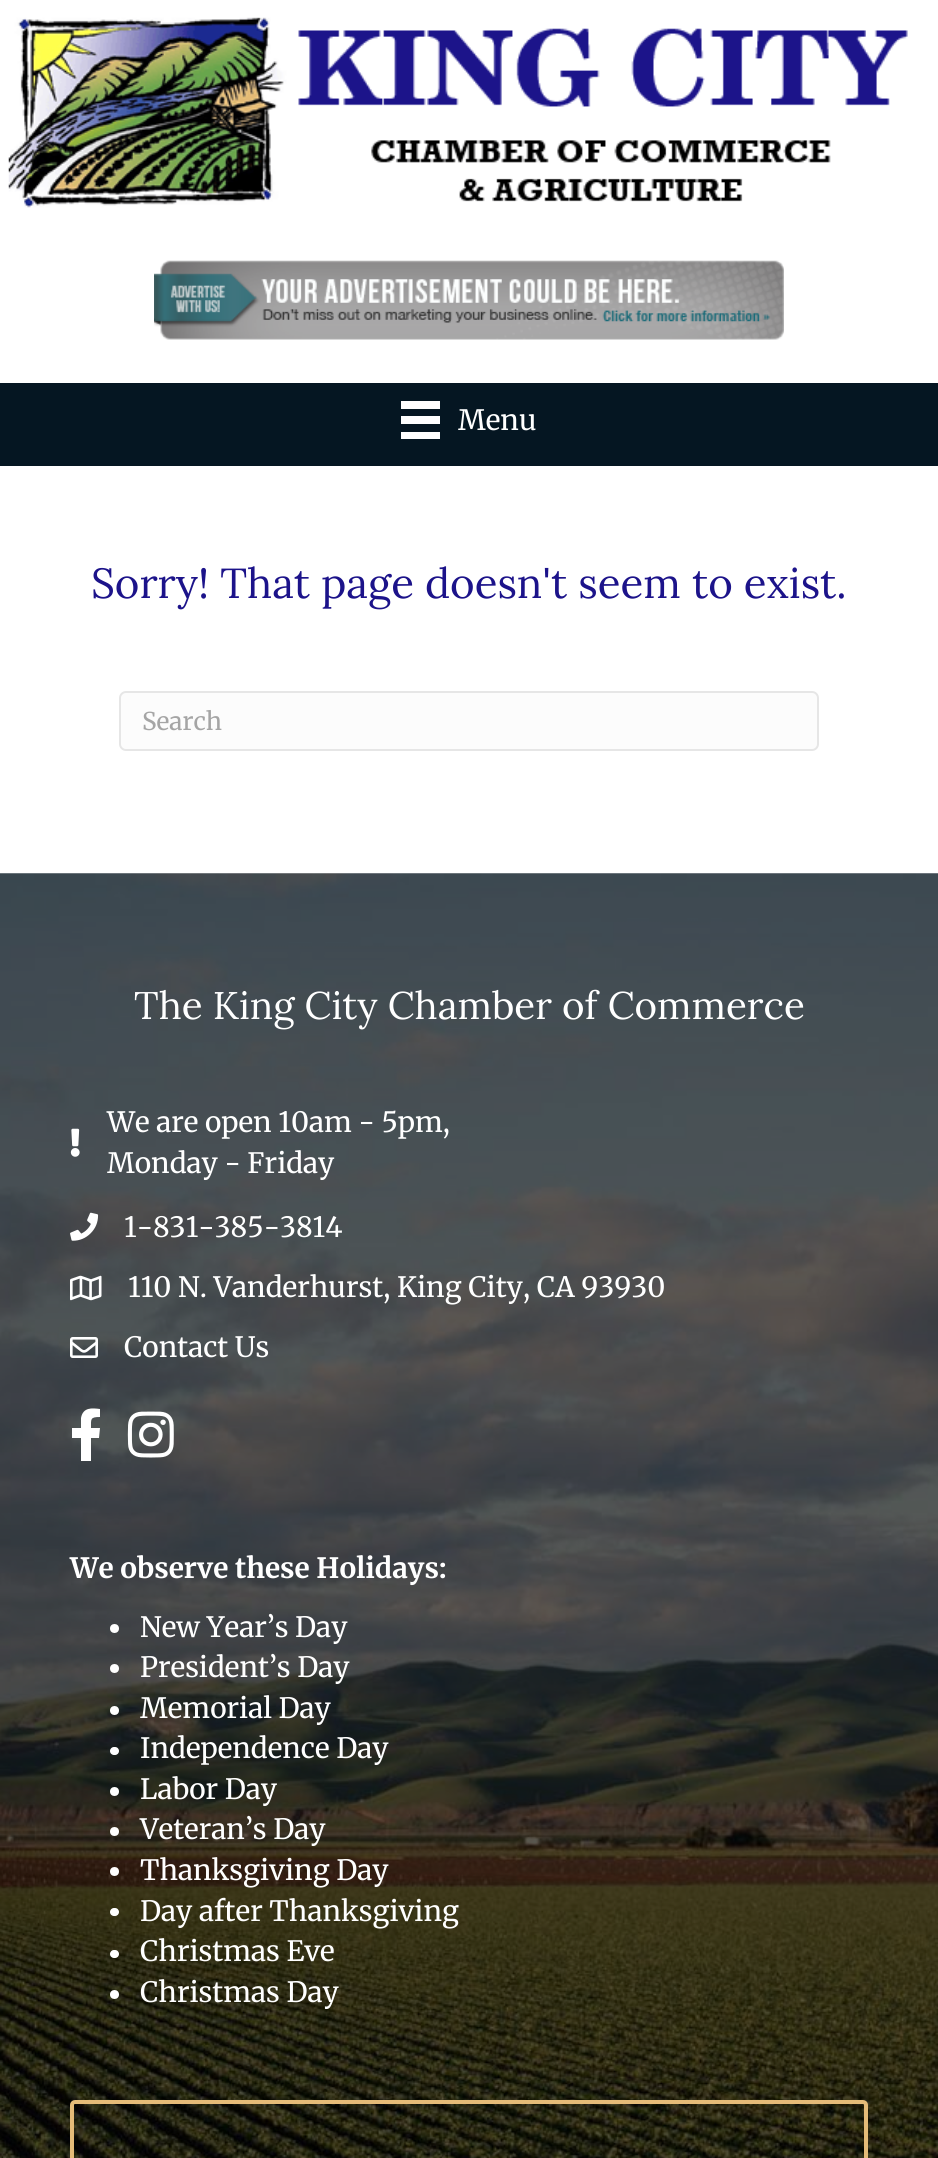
import math
import cairo


def round_path(ctx, x, y, w, h, r):
	ctx.new_sub_path()
	for i, (u, v) in enumerate([(x + w - r, y + h - r), (x + r, y + h - r), (x + r, y + r), (x + w - r, y + r)]):
		ctx.arc(u, v, r, i * math.pi / 2, (i + 1) * math.pi / 2)
	ctx.close_path()

def blur_box(ctx, x, y, w, h, r, blur, alpha):
	ctx.push_group_with_content(cairo.CONTENT_ALPHA)
	ctx.set_operator(cairo.OPERATOR_SOURCE)
	for i in range(15, -16, -2):
		e = blur * i / 6
		if min(w, h) + 2 * e > 0:
			ctx.set_source_rgba(0, 0, 0, alpha * math.erfc((i - 1) / 8.5) / 2)
			round_path(ctx, x - e, y - e, w + 2 * e, h + 2 * e, max(0, min(r + e + blur * .6, min(w, h) / 2 + e)))
			ctx.fill()
	ctx.mask(ctx.pop_group())

def paste(ctx, path, x, y, w, h):
	ctx.save()
	ctx.set_source_surface(cairo.ImageSurface.create_from_png(path), x, y)
	ctx.rectangle(x, y, w, h)
	ctx.fill()
	ctx.restore()

def draw(ctx):
	ctx.set_source_rgb(1, 1, 1)
	ctx.paint()
	paste(ctx, 'media/1.png', 8, 17, 900, 191)
	paste(ctx, 'media/2.png', 154, 260, 630, 80)
	ctx.set_source_rgb(0.02, 0.086, 0.133)
	ctx.rectangle(0, 383, 938, 83)
	ctx.fill()
	ctx.set_source_rgb(1, 1, 1)
	ctx.rectangle(401, 401, 39, 8)
	ctx.rectangle(401, 416, 39, 8)
	ctx.rectangle(401, 432, 39, 7)
	ctx.fill()
	ctx.select_font_face('Merriweather')
	ctx.set_font_size(28)
	ctx.move_to(458, 430)
	ctx.show_text('Menu')
	ctx.select_font_face('Lora')
	ctx.set_font_size(42)
	ctx.set_source_rgb(0.11, 0.078, 0.541)
	ctx.move_to(91, 598)
	ctx.show_text('Sorry! That page doesn\'t seem to exist.')
	ctx.set_source_rgb(0.988, 0.988, 0.988)
	round_path(ctx, 120, 692, 698, 58, 6)
	ctx.fill_preserve()
	ctx.set_source_rgb(0.902, 0.902, 0.902)
	ctx.stroke()
	ctx.select_font_face('Merriweather')
	ctx.set_font_size(24.5)
	ctx.set_source_rgb(0.647, 0.647, 0.647)
	ctx.move_to(142, 730)
	ctx.show_text('Search')
	paste(ctx, 'media/3.png', 0, 873, 938, 1285)
	ctx.select_font_face('Lora')
	ctx.set_font_size(38.5)
	ctx.set_source_rgb(1, 1, 1)
	ctx.move_to(134, 1019)
	ctx.show_text('The King City Chamber of Commerce')
	paste(ctx, 'media/4.png', 70, 1128, 10, 29)
	ctx.select_font_face('Merriweather')
	ctx.set_font_size(28)
	ctx.move_to(107, 1132)
	ctx.show_text('We are open 10am - 5pm,')
	ctx.move_to(107, 1173)
	ctx.show_text('Monday - Friday')
	paste(ctx, 'media/5.png', 70, 1212, 29, 29)
	ctx.move_to(124, 1237)
	ctx.show_text('1-831-385-3814')
	paste(ctx, 'media/6.png', 70, 1275, 32, 26)
	ctx.move_to(128, 1297)
	ctx.show_text('110 N. Vanderhurst, King City, CA 93930')
	paste(ctx, 'media/7.png', 70, 1337, 28, 21)
	ctx.move_to(124, 1357)
	ctx.show_text('Contact Us')
	ctx.new_path()
	ctx.move_to(99, 1438)
	ctx.line_to(91, 1438)
	ctx.line_to(91, 1461)
	ctx.line_to(81, 1461)
	ctx.line_to(81, 1438)
	ctx.line_to(72, 1438)
	ctx.line_to(72, 1428)
	ctx.line_to(81, 1428)
	ctx.line_to(81, 1418)
	ctx.curve_to(83, 1407, 92, 1408, 100, 1409)
	ctx.line_to(100, 1417)
	ctx.curve_to(90, 1417, 91, 1419, 91, 1428)
	ctx.line_to(100, 1428)
	ctx.close_path()
	ctx.fill()
	paste(ctx, 'media/8.png', 127, 1411, 47, 47)
	ctx.select_font_face('Merriweather', cairo.FONT_SLANT_NORMAL, cairo.FONT_WEIGHT_BOLD)
	ctx.move_to(70, 1578)
	ctx.show_text('We observe these Holidays:')
	ctx.new_path()
	ctx.arc(114.5, 1628.5, 4.5, 0, 2 * math.pi)
	ctx.fill()
	ctx.select_font_face('Merriweather')
	ctx.move_to(140, 1637)
	ctx.show_text('New Year’s Day')
	ctx.new_path()
	ctx.arc(114.5, 1668.5, 4.5, 0, 2 * math.pi)
	ctx.fill()
	ctx.move_to(140, 1677)
	ctx.show_text('President’s Day')
	ctx.new_path()
	ctx.arc(114.5, 1710.5, 4.5, 0, 2 * math.pi)
	ctx.fill()
	ctx.move_to(140, 1718)
	ctx.show_text('Memorial Day')
	round_path(ctx, 110, 1747, 9, 8, 4)
	ctx.fill()
	ctx.move_to(140, 1758)
	ctx.show_text('Independence Day')
	ctx.new_path()
	ctx.arc(114.5, 1791.5, 4.5, 0, 2 * math.pi)
	ctx.fill()
	ctx.move_to(140, 1799)
	ctx.show_text('Labor Day')
	ctx.new_path()
	ctx.arc(114.5, 1831.5, 4.5, 0, 2 * math.pi)
	ctx.fill()
	ctx.move_to(140, 1839)
	ctx.show_text('Veteran’s Day')
	ctx.new_path()
	ctx.arc(114.5, 1871.5, 4.5, 0, 2 * math.pi)
	ctx.fill()
	ctx.move_to(140, 1880)
	ctx.show_text('Thanksgiving Day')
	round_path(ctx, 110, 1908, 9, 8, 4)
	ctx.fill()
	ctx.move_to(140, 1921)
	ctx.show_text('Day after Thanksgiving')
	round_path(ctx, 110, 1950, 9, 8, 4)
	ctx.fill()
	ctx.move_to(140, 1961)
	ctx.show_text('Christmas Eve')
	ctx.new_path()
	ctx.arc(114.5, 1994.5, 4.5, 0, 2 * math.pi)
	ctx.fill()
	ctx.move_to(140, 2002)
	ctx.show_text('Christmas Day')
	ctx.save()
	ctx.rectangle(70, 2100, 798, 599)
	ctx.clip()
	ctx.set_fill_rule(cairo.FILL_RULE_EVEN_ODD)
	ctx.new_path()
	ctx.move_to(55, 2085)
	ctx.line_to(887, 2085)
	ctx.line_to(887, 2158)
	ctx.line_to(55, 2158)
	ctx.close_path()
	ctx.move_to(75, 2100)
	ctx.line_to(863, 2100)
	ctx.curve_to(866, 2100, 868, 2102, 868, 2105)
	ctx.line_to(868, 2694)
	ctx.curve_to(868, 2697, 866, 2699, 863, 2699)
	ctx.line_to(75, 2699)
	ctx.curve_to(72, 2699, 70, 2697, 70, 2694)
	ctx.line_to(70, 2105)
	ctx.curve_to(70, 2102, 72, 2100, 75, 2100)
	ctx.close_path()
	ctx.clip()
	ctx.set_source_rgb(0.02, 0.086, 0.133)
	blur_box(ctx, 70, 2100, 802, 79, 7, 4.5, 0.45)
	ctx.restore()
	round_path(ctx, 72, 2102, 794, 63, 3)
	ctx.set_source_rgb(0.898, 0.733, 0.471)
	ctx.set_line_width(4)
	ctx.stroke()


surface = cairo.ImageSurface(cairo.FORMAT_RGB24, 938, 2158)
ctx = cairo.Context(surface)
options = cairo.FontOptions()
options.set_hint_metrics(cairo.HINT_METRICS_OFF)
options.set_hint_style(cairo.HINT_STYLE_NONE)
ctx.set_font_options(options)
ctx.set_miter_limit(4)
draw(ctx)
surface.write_to_png('image.png')
